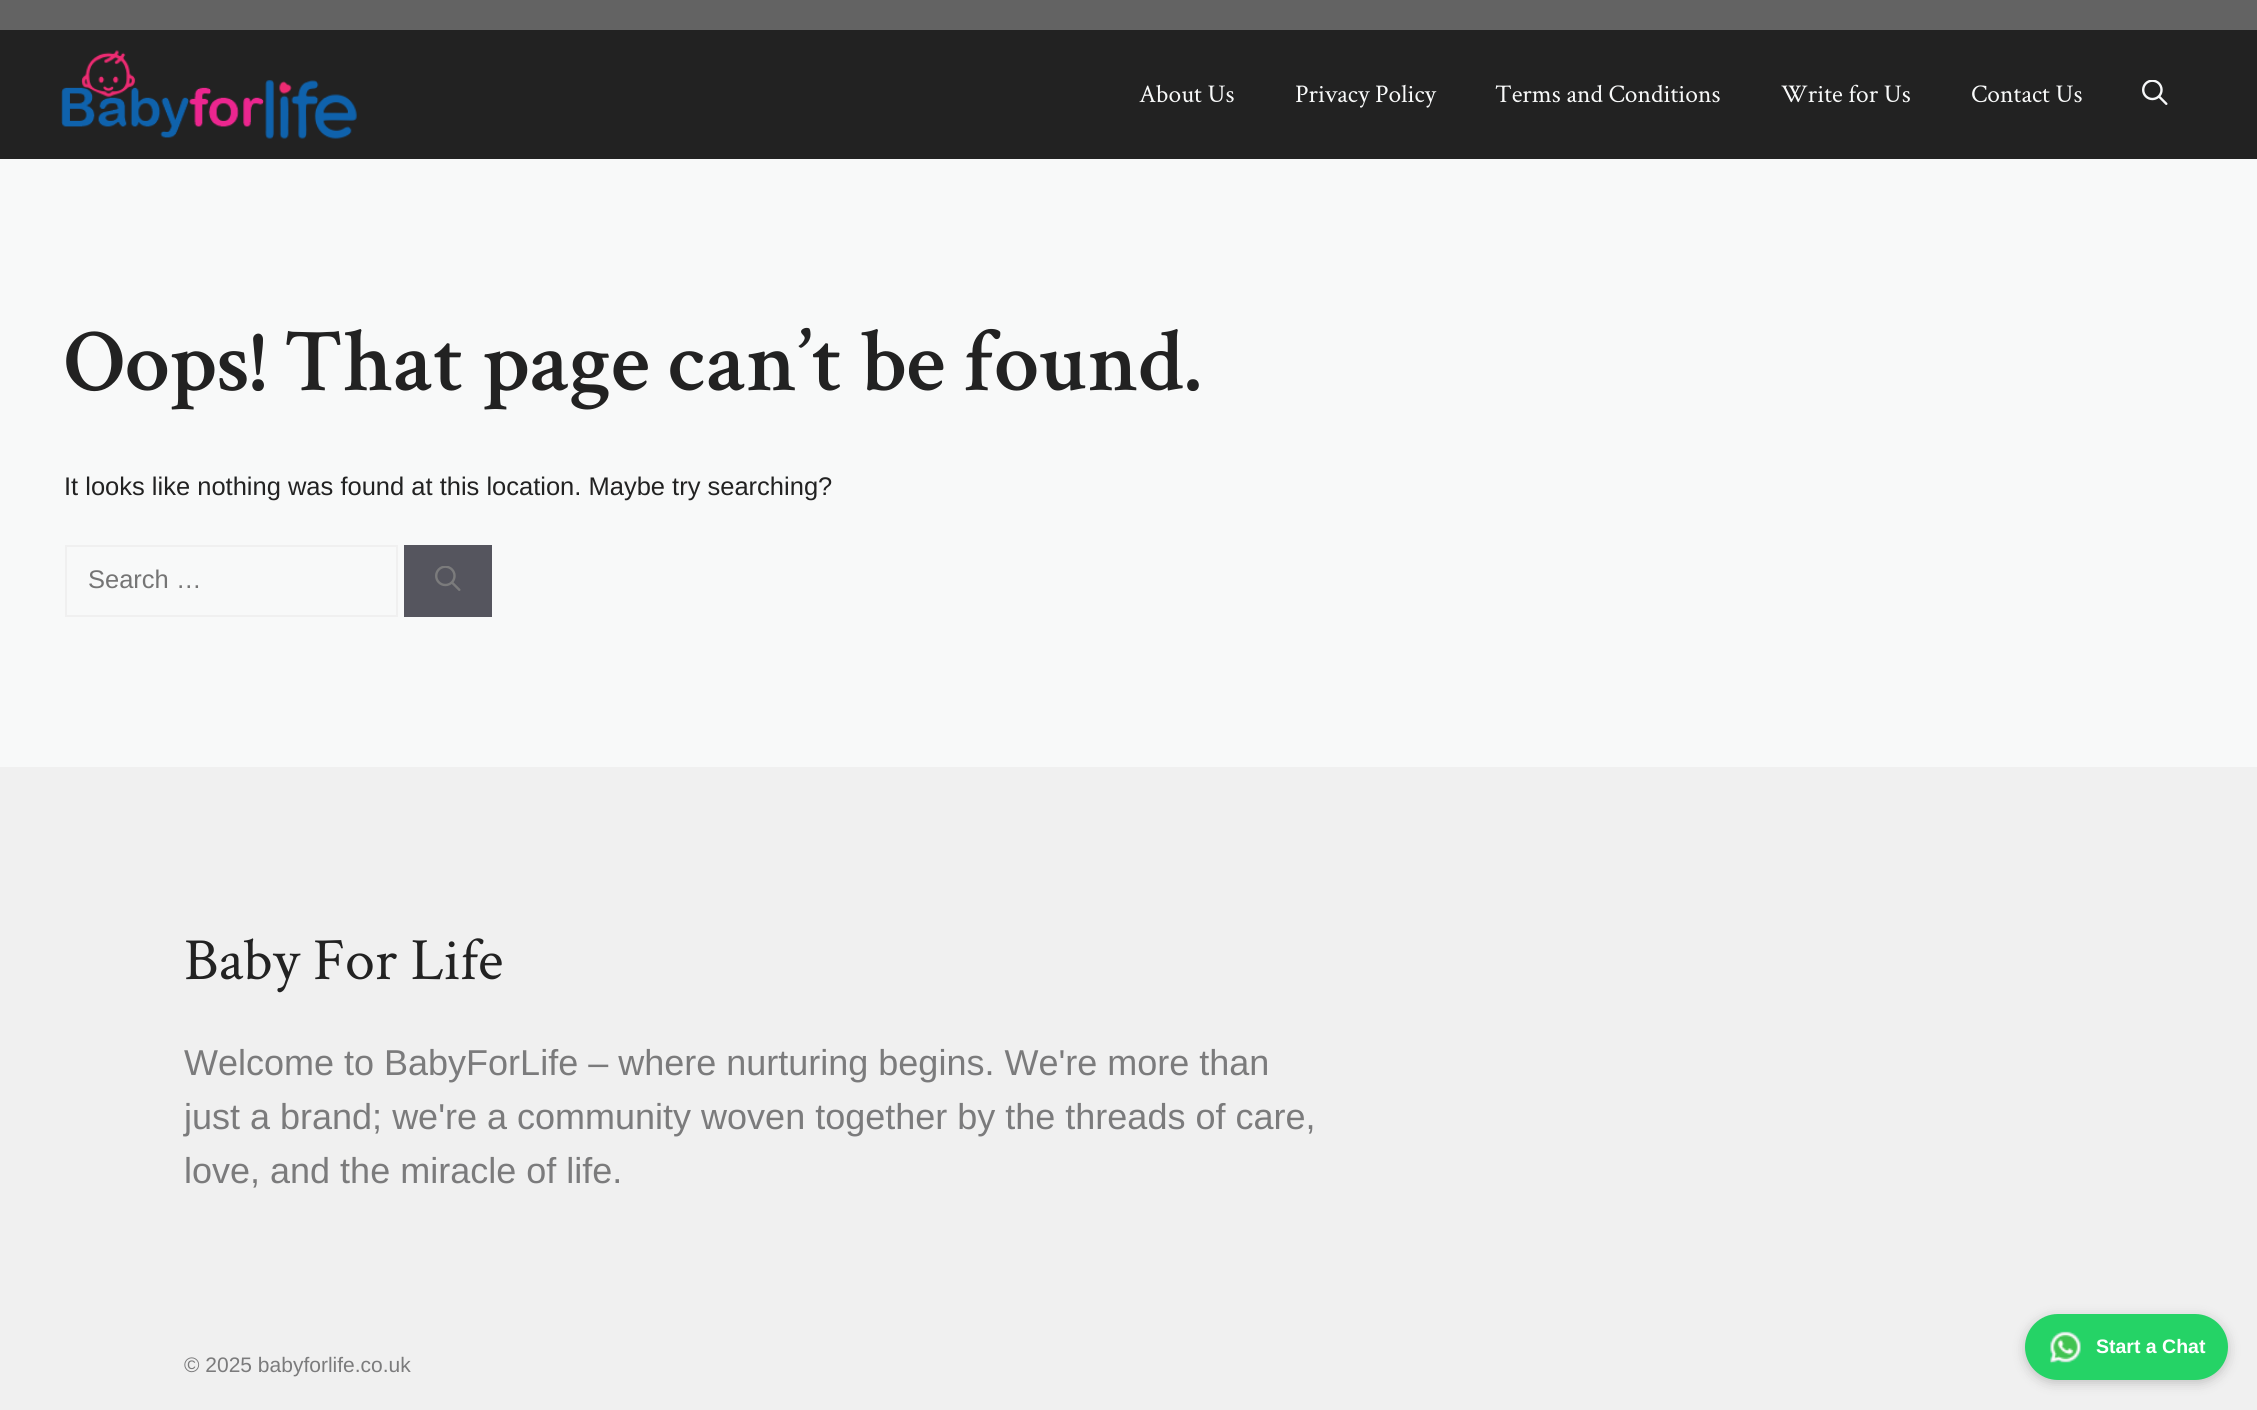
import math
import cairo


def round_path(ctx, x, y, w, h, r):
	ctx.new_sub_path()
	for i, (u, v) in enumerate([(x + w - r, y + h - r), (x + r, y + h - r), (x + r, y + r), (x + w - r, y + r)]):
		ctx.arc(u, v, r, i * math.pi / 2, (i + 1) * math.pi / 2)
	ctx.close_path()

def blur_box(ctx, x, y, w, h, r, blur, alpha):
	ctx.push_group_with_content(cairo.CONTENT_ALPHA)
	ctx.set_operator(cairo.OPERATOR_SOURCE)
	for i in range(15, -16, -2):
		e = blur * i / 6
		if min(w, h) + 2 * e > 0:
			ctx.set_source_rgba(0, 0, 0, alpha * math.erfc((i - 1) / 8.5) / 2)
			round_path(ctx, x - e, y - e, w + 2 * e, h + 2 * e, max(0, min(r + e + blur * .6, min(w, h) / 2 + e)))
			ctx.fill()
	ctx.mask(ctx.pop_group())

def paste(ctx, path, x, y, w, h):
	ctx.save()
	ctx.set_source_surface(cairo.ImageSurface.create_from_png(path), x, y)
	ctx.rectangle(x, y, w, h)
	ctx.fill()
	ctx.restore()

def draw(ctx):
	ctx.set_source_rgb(0.969, 0.973, 0.976)
	ctx.paint()
	ctx.set_source_rgb(0.133, 0.133, 0.133)
	ctx.rectangle(0, 30, 2257, 129)
	ctx.fill()
	paste(ctx, 'media/1.png', 61, 50, 296, 89)
	ctx.select_font_face('Crimson Text')
	ctx.set_font_size(25.5)
	ctx.set_source_rgb(0.969, 0.973, 0.976)
	for x, y, s in [
		(1139, 102, 'About Us'),
		(1295, 102, 'Privacy Policy'),
		(1495, 102, 'Terms and Conditions'),
		(1781, 102, 'Write for Us'),
		(1971, 102, 'Contact Us'),
	]:
		ctx.move_to(x, y)
		ctx.show_text(s)
	paste(ctx, 'media/2.png', 2142, 80, 26, 25)
	ctx.select_font_face('Crimson Text SemiBold')
	ctx.set_font_size(90)
	ctx.set_source_rgb(0.133, 0.133, 0.133)
	ctx.move_to(64, 390)
	ctx.show_text('Oops! That page can’t be found.')
	ctx.select_font_face('Liberation Sans')
	ctx.set_font_size(25.5)
	ctx.move_to(64, 495)
	ctx.show_text('It looks like nothing was found at this location. Maybe try searching?')
	ctx.rectangle(66, 546, 331, 70)
	ctx.set_source_rgb(0.941, 0.941, 0.941)
	ctx.stroke()
	ctx.set_source_rgb(0.459, 0.459, 0.459)
	ctx.move_to(88, 588)
	ctx.show_text('Search …')
	ctx.set_source_rgb(0.333, 0.333, 0.369)
	ctx.rectangle(404, 545, 88, 72)
	ctx.fill()
	paste(ctx, 'media/3.png', 435, 566, 26, 25)
	ctx.set_source_rgb(0.941, 0.941, 0.941)
	ctx.rectangle(0, 767, 2257, 643)
	ctx.fill()
	ctx.select_font_face('Crimson Text')
	ctx.set_font_size(60)
	ctx.set_source_rgb(0.133, 0.133, 0.133)
	ctx.move_to(184, 979)
	ctx.show_text('Baby For Life')
	ctx.select_font_face('Liberation Sans')
	ctx.set_font_size(36)
	ctx.set_source_rgb(0.482, 0.482, 0.486)
	for x, y, s in [
		(184, 1075, 'Welcome to BabyForLife – where nurturing begins. We\'re more than'),
		(184, 1129, 'just a brand; we\'re a community woven together by the threads of care,'),
		(184, 1183, 'love, and the miracle of life.'),
	]:
		ctx.move_to(x, y)
		ctx.show_text(s)
	ctx.set_font_size(21)
	ctx.move_to(184, 1372)
	ctx.show_text('© 2025 babyforlife.co.uk')
	ctx.set_source_rgb(0.388, 0.388, 0.388)
	ctx.rectangle(0, 0, 2257, 30)
	ctx.fill()
	ctx.set_source_rgb(0, 0, 0)
	blur_box(ctx, 2025, 1317, 203, 66, 33, 6, 0.2)
	ctx.set_source_rgb(0.145, 0.827, 0.4)
	round_path(ctx, 2025, 1314, 203, 66, 33)
	ctx.fill()
	paste(ctx, 'media/4.png', 2050, 1331, 31, 33)
	ctx.select_font_face('Liberation Sans', cairo.FONT_SLANT_NORMAL, cairo.FONT_WEIGHT_BOLD)
	ctx.set_font_size(19.5)
	ctx.set_source_rgb(1, 1, 1)
	ctx.move_to(2096, 1353)
	ctx.show_text('Start a Chat')


surface = cairo.ImageSurface(cairo.FORMAT_RGB24, 2257, 1410)
ctx = cairo.Context(surface)
options = cairo.FontOptions()
options.set_hint_metrics(cairo.HINT_METRICS_OFF)
options.set_hint_style(cairo.HINT_STYLE_NONE)
ctx.set_font_options(options)
ctx.set_miter_limit(4)
draw(ctx)
surface.write_to_png('image.png')
